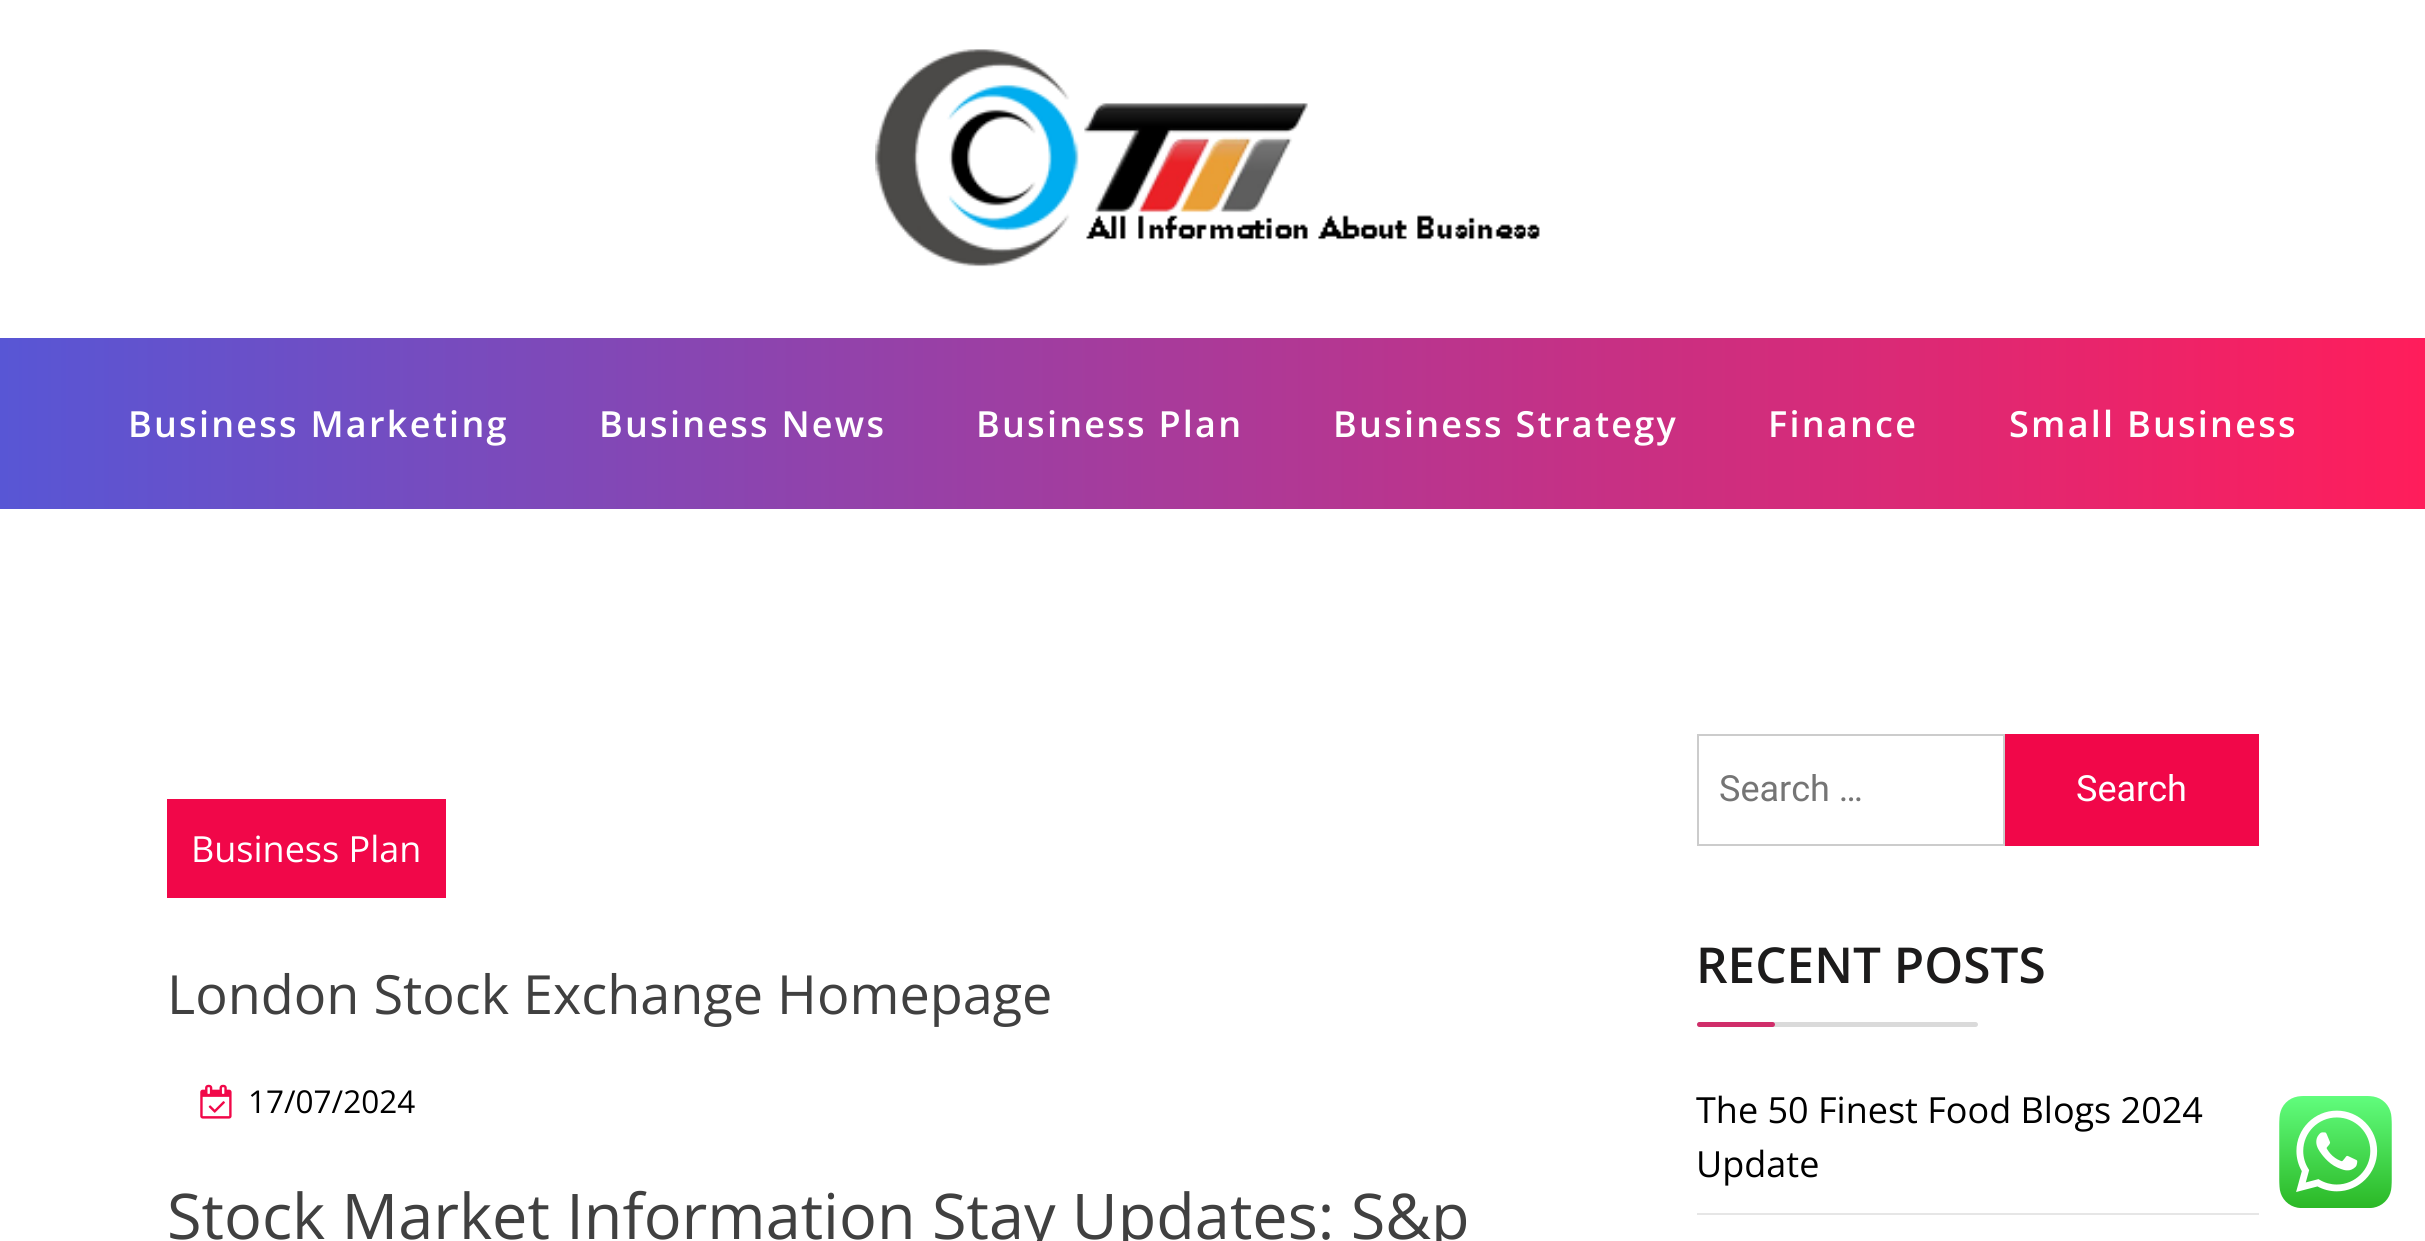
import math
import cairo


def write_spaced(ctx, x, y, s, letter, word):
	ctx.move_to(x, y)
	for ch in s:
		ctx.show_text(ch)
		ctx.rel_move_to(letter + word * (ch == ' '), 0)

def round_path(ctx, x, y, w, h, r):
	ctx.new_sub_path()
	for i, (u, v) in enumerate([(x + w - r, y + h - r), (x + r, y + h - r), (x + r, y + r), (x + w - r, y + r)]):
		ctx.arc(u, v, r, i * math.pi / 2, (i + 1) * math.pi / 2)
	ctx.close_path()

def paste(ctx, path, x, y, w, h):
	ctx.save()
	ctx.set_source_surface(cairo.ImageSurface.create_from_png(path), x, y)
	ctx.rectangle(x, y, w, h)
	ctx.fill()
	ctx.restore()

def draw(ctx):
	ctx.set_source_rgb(1, 1, 1)
	ctx.paint()
	paste(ctx, 'media/1.png', 875, 49, 665, 218)
	gradient = cairo.LinearGradient(0, 423, 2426, 423)
	gradient.add_color_stop_rgba(0, 0.345, 0.337, 0.835, 1)
	gradient.add_color_stop_rgba(1, 1, 0.114, 0.357, 1)
	ctx.set_source(gradient)
	ctx.rectangle(0, 338, 2425, 171)
	ctx.fill()
	ctx.select_font_face('Open Sans SemiBold')
	ctx.set_font_size(36)
	ctx.set_source_rgb(1, 1, 1)
	for x, y, s in [
		(128, 437, 'Business Marketing'),
		(599, 437, 'Business News'),
		(976, 437, 'Business Plan'),
		(1333, 437, 'Business Strategy'),
		(1768, 437, 'Finance'),
		(2009, 437, 'Small Business'),
	]:
		write_spaced(ctx, x, y, s, 2.25, 0)
	ctx.set_source_rgb(0.945, 0.031, 0.286)
	ctx.rectangle(167, 799, 279, 99)
	ctx.fill()
	ctx.select_font_face('Open Sans')
	ctx.set_source_rgb(1, 1, 1)
	ctx.move_to(191, 862)
	ctx.show_text('Business Plan')
	ctx.set_font_size(54)
	ctx.set_source_rgb(0.251, 0.251, 0.251)
	ctx.move_to(167, 1014)
	ctx.show_text('London Stock Exchange Homepage')
	paste(ctx, 'media/2.png', 200, 1084, 32, 35)
	ctx.set_font_size(31.5)
	ctx.set_source_rgb(0, 0, 0)
	ctx.move_to(248, 1113)
	ctx.show_text('17/07/2024')
	ctx.set_font_size(63)
	ctx.set_source_rgb(0.251, 0.251, 0.251)
	ctx.move_to(167, 1239)
	ctx.show_text('Stock Market Information Stay Updates: S&p')
	ctx.rectangle(1698, 735, 306, 110)
	ctx.set_source_rgb(0.8, 0.8, 0.8)
	ctx.stroke()
	ctx.select_font_face('Roboto')
	ctx.set_font_size(36)
	ctx.set_source_rgb(0.459, 0.459, 0.459)
	ctx.move_to(1719, 801)
	ctx.show_text('Search …')
	ctx.set_source_rgb(0.945, 0.031, 0.286)
	ctx.rectangle(2005, 734, 254, 112)
	ctx.fill()
	ctx.set_source_rgb(1, 1, 1)
	ctx.move_to(2076, 801)
	ctx.show_text('Search')
	ctx.select_font_face('Open Sans SemiBold')
	ctx.set_font_size(49.5)
	ctx.set_source_rgb(0.11, 0.106, 0.106)
	ctx.move_to(1696, 983)
	ctx.show_text('RECENT POSTS')
	ctx.set_source_rgb(0.855, 0.855, 0.855)
	round_path(ctx, 1697, 1022, 281, 5, 2.5)
	ctx.fill()
	ctx.set_source_rgb(0.816, 0.18, 0.416)
	round_path(ctx, 1697, 1022, 78, 5, 2.5)
	ctx.fill()
	ctx.set_source_rgb(0.902, 0.902, 0.902)
	ctx.rectangle(1697, 1213, 562, 2)
	ctx.fill()
	ctx.select_font_face('Open Sans')
	ctx.set_font_size(36)
	ctx.set_source_rgb(0, 0, 0)
	ctx.move_to(1696, 1123)
	ctx.show_text('The 50 Finest Food Blogs 2024')
	ctx.move_to(1696, 1177)
	ctx.show_text('Update')
	paste(ctx, 'media/3.png', 2279, 1096, 113, 112)


surface = cairo.ImageSurface(cairo.FORMAT_RGB24, 2425, 1241)
ctx = cairo.Context(surface)
options = cairo.FontOptions()
options.set_hint_metrics(cairo.HINT_METRICS_OFF)
options.set_hint_style(cairo.HINT_STYLE_NONE)
ctx.set_font_options(options)
ctx.set_miter_limit(4)
draw(ctx)
surface.write_to_png('image.png')
